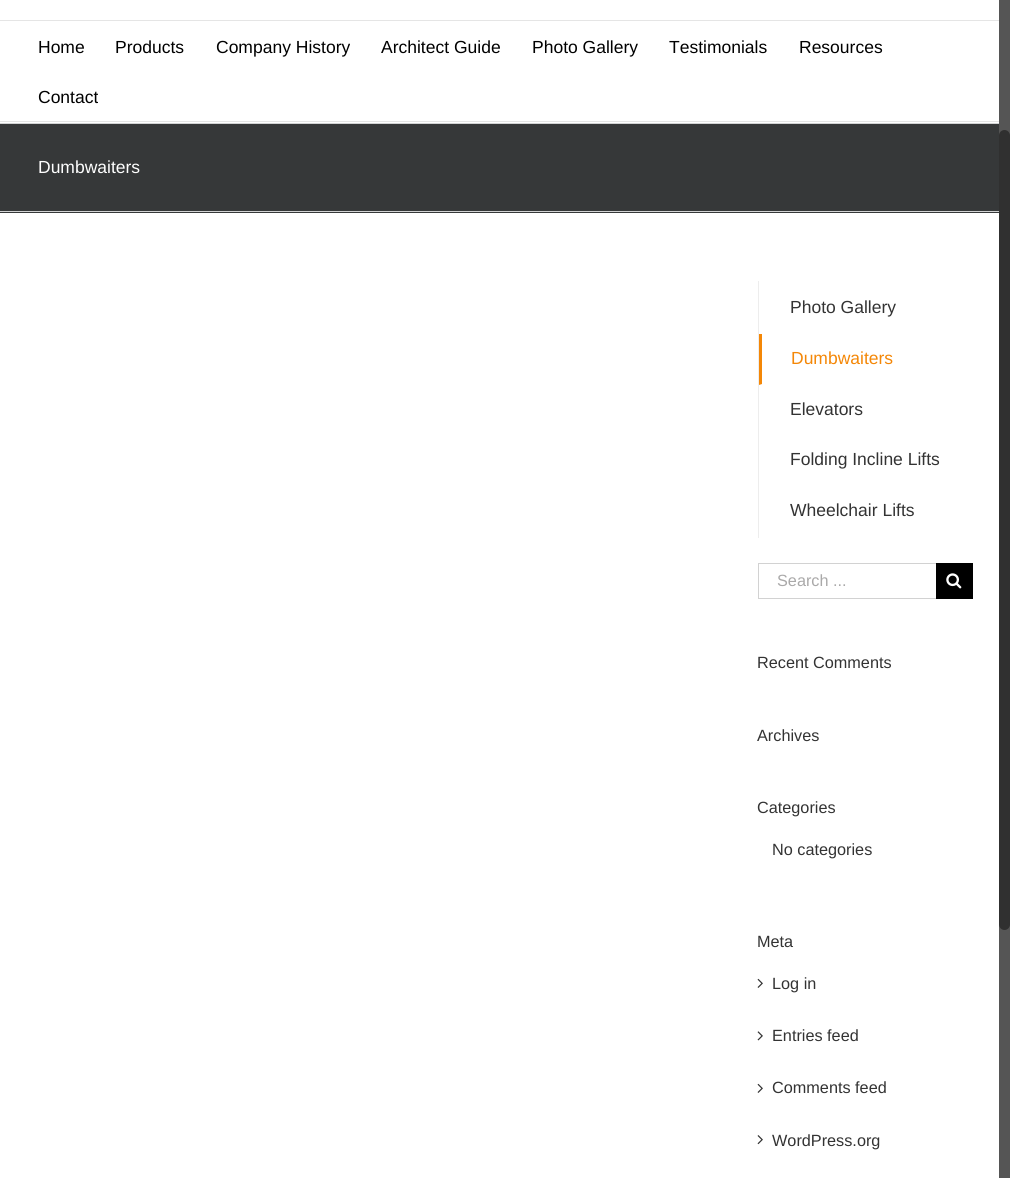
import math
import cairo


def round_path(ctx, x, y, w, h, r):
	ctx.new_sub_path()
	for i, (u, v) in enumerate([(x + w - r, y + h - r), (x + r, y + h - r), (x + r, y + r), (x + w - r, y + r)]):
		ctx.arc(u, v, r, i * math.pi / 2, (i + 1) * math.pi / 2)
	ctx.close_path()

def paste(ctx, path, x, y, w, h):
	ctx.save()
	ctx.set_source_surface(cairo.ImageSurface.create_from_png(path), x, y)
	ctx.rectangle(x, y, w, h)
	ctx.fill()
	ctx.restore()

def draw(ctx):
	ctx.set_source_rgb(1, 1, 1)
	ctx.paint()
	ctx.set_source_rgb(0.898, 0.898, 0.898)
	ctx.rectangle(0, 20, 999, 1)
	ctx.fill()
	ctx.rectangle(0, 121, 999, 1)
	ctx.fill()
	ctx.select_font_face('Liberation Sans')
	ctx.set_font_size(17.5)
	ctx.set_source_rgb(0, 0, 0)
	for x, y, s in [
		(38, 53, 'Home'),
		(115, 53, 'Products'),
		(216, 53, 'Company History'),
		(381, 53, 'Architect Guide'),
		(532, 53, 'Photo Gallery'),
		(669, 53, 'Testimonials'),
		(799, 53, 'Resources'),
		(38, 103, 'Contact'),
	]:
		ctx.move_to(x, y)
		ctx.show_text(s)
	ctx.set_source_rgb(0.212, 0.22, 0.224)
	ctx.rectangle(0, 124, 999, 89)
	ctx.fill()
	ctx.set_source_rgb(0.824, 0.827, 0.831)
	ctx.rectangle(0, 123, 999, 1)
	ctx.rectangle(0, 211, 999, 1)
	ctx.fill()
	ctx.set_source_rgb(0.996, 0.996, 0.996)
	ctx.move_to(38, 173)
	ctx.show_text('Dumbwaiters')
	ctx.set_source_rgb(0.929, 0.929, 0.929)
	ctx.rectangle(758, 281, 1, 257)
	ctx.fill()
	ctx.set_source_rgb(0.2, 0.2, 0.2)
	ctx.move_to(790, 313)
	ctx.show_text('Photo Gallery')
	ctx.set_source_rgb(0.957, 0.529, 0.031)
	ctx.new_path()
	ctx.move_to(759, 385)
	ctx.line_to(759, 334)
	ctx.line_to(762, 334)
	ctx.line_to(762, 384)
	ctx.close_path()
	ctx.fill()
	ctx.move_to(791, 364)
	ctx.show_text('Dumbwaiters')
	ctx.set_source_rgb(0.2, 0.2, 0.2)
	for x, y, s in [
		(790, 415, 'Elevators'),
		(790, 465, 'Folding Incline Lifts'),
		(790, 516, 'Wheelchair Lifts'),
	]:
		ctx.move_to(x, y)
		ctx.show_text(s)
	ctx.set_source_rgb(0.824, 0.824, 0.824)
	ctx.rectangle(758, 563, 178, 1)
	ctx.rectangle(758, 598, 178, 1)
	ctx.rectangle(758, 563, 1, 36)
	ctx.fill()
	ctx.set_font_size(16.25)
	ctx.set_source_rgb(0.667, 0.663, 0.663)
	ctx.move_to(777, 586)
	ctx.show_text('Search ...')
	ctx.set_source_rgb(0, 0, 0)
	ctx.rectangle(936, 563, 37, 36)
	ctx.fill()
	paste(ctx, 'media/1.png', 946, 573, 16, 16)
	ctx.set_source_rgb(0.2, 0.2, 0.2)
	for x, y, s in [
		(757, 668, 'Recent Comments'),
		(757, 741, 'Archives'),
		(757, 813, 'Categories'),
		(772, 855, 'No categories'),
		(757, 947, 'Meta'),
	]:
		ctx.move_to(x, y)
		ctx.show_text(s)
	paste(ctx, 'media/2.png', 757, 978, 6, 10)
	ctx.move_to(772, 989)
	ctx.show_text('Log in')
	paste(ctx, 'media/3.png', 757, 1031, 6, 10)
	ctx.move_to(772, 1041)
	ctx.show_text('Entries feed')
	paste(ctx, 'media/2.png', 757, 1083, 6, 10)
	ctx.move_to(772, 1093)
	ctx.show_text('Comments feed')
	paste(ctx, 'media/4.png', 757, 1135, 6, 10)
	ctx.move_to(772, 1146)
	ctx.show_text('WordPress.org')
	ctx.set_source_rgb(0.333, 0.333, 0.333)
	ctx.rectangle(999, 0, 11, 1178)
	ctx.fill()
	ctx.set_source_rgb(0.188, 0.188, 0.188)
	round_path(ctx, 999, 130, 11, 800, 5.5)
	ctx.fill()


surface = cairo.ImageSurface(cairo.FORMAT_RGB24, 1010, 1178)
ctx = cairo.Context(surface)
options = cairo.FontOptions()
options.set_hint_metrics(cairo.HINT_METRICS_OFF)
options.set_hint_style(cairo.HINT_STYLE_NONE)
ctx.set_font_options(options)
ctx.set_miter_limit(4)
draw(ctx)
surface.write_to_png('image.png')
